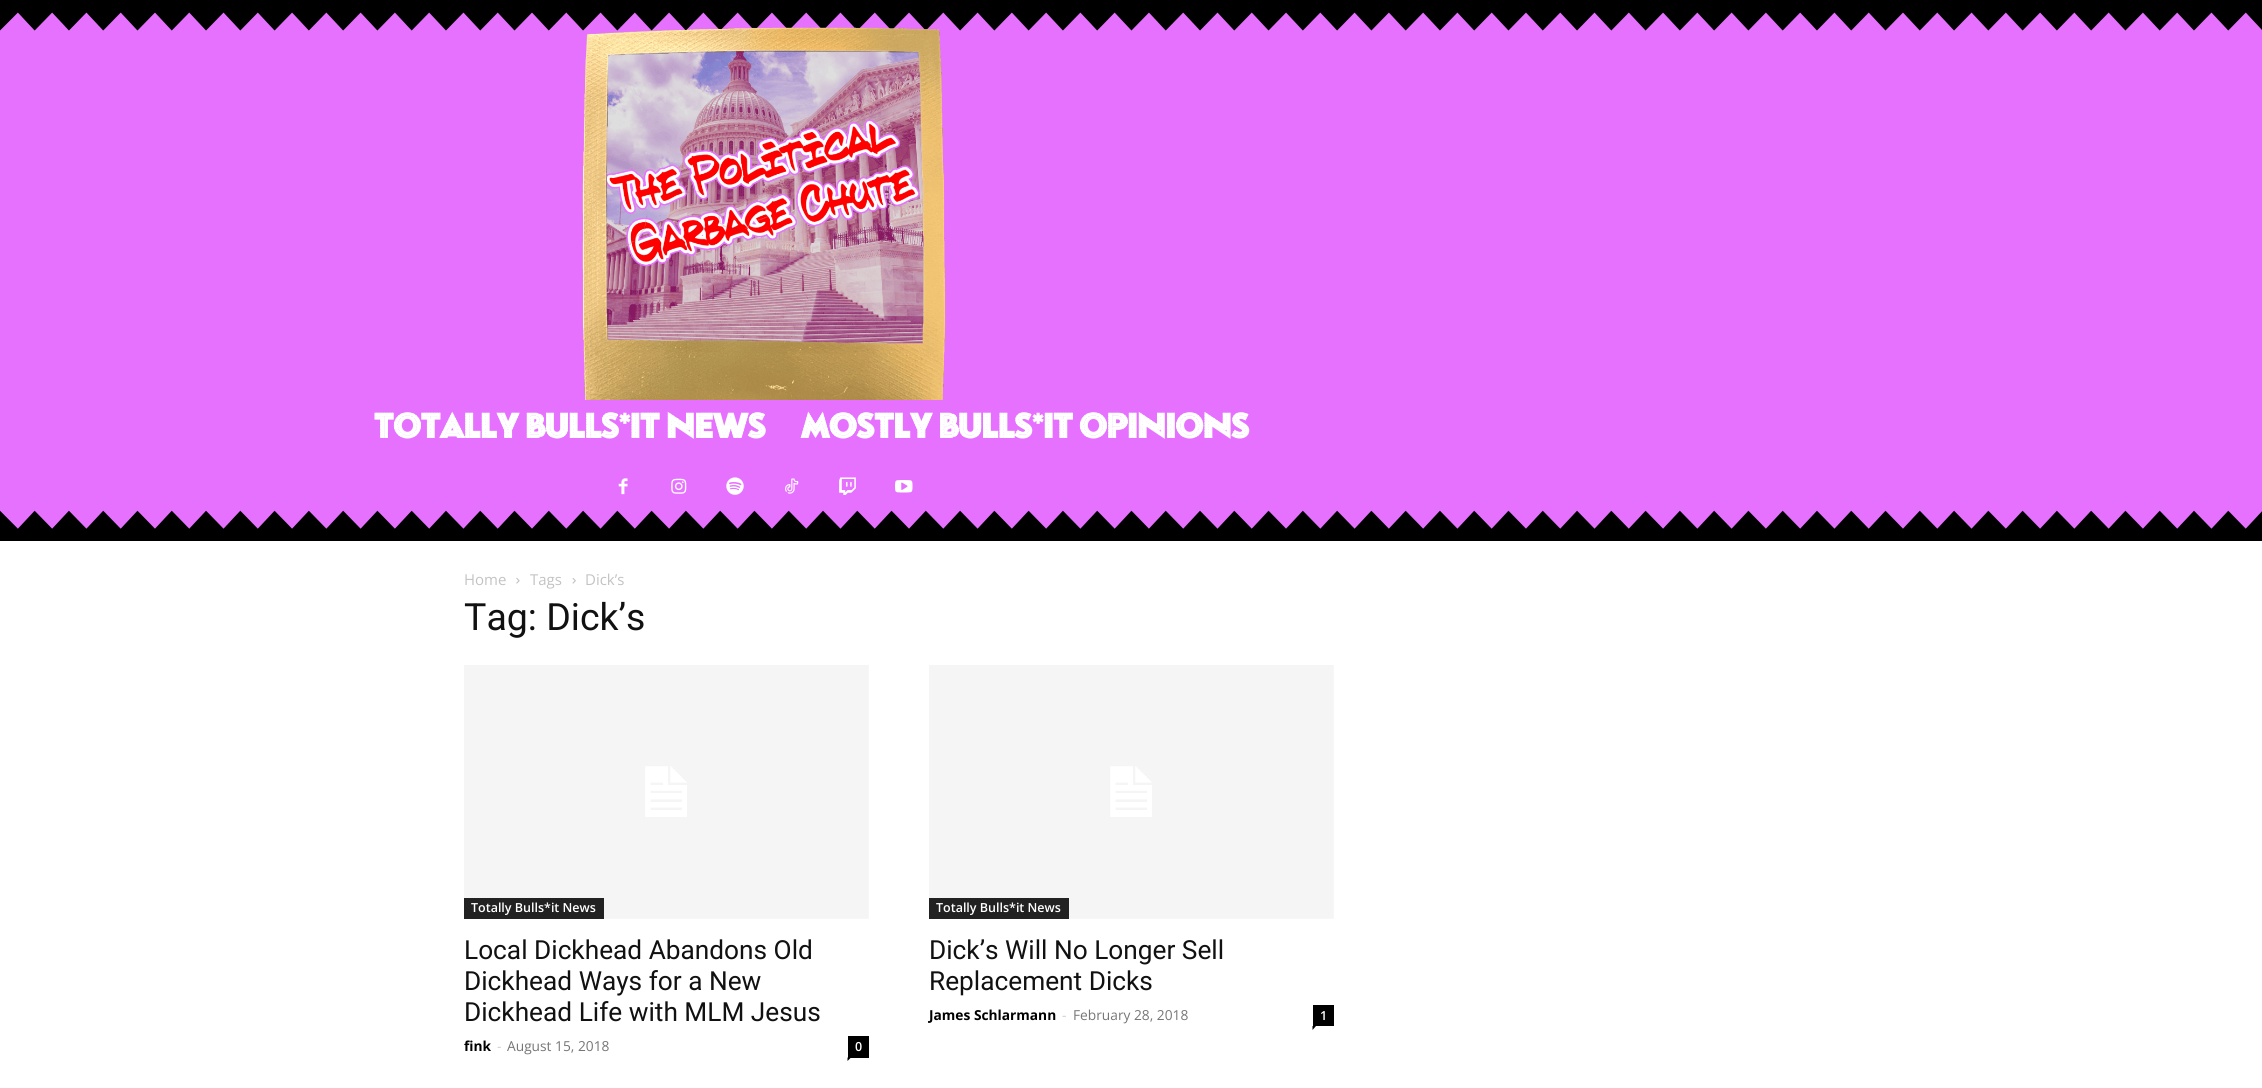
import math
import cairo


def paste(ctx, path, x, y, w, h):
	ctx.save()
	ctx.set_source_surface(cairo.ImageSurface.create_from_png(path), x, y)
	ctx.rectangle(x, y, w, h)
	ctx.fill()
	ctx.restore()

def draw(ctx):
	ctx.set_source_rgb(1, 1, 1)
	ctx.paint()
	ctx.set_source_rgb(0.906, 0.443, 1)
	ctx.rectangle(0, 12, 2262, 517)
	ctx.fill()
	paste(ctx, 'media/1.png', 0, 0, 2262, 31)
	paste(ctx, 'media/2.png', 0, 510, 2262, 31)
	paste(ctx, 'media/3.png', 582, 26, 364, 374)
	ctx.select_font_face('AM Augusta', cairo.FONT_SLANT_NORMAL, cairo.FONT_WEIGHT_BOLD)
	ctx.set_font_size(32.5)
	ctx.set_source_rgb(1, 1, 1)
	ctx.move_to(374, 438)
	ctx.show_text('Totally Bulls*it News')
	ctx.move_to(801, 438)
	ctx.show_text('Mostly Bulls*it Opinions')
	paste(ctx, 'media/4.png', 618, 478, 10, 17)
	paste(ctx, 'media/5.png', 671, 478, 16, 16)
	paste(ctx, 'media/6.png', 726, 477, 18, 18)
	paste(ctx, 'media/7.png', 785, 478, 14, 16)
	paste(ctx, 'media/8.png', 839, 477, 17, 18)
	paste(ctx, 'media/9.png', 895, 480, 18, 13)
	ctx.select_font_face('Open Sans')
	ctx.set_font_size(15)
	ctx.set_source_rgb(0.765, 0.765, 0.765)
	ctx.move_to(464, 585)
	ctx.show_text('Home')
	paste(ctx, 'media/10.png', 516, 577, 4, 7)
	ctx.move_to(530, 585)
	ctx.show_text('Tags')
	paste(ctx, 'media/11.png', 572, 578, 4, 6)
	ctx.move_to(585, 585)
	ctx.show_text('Dick’s')
	ctx.select_font_face('Roboto')
	ctx.set_font_size(37.5)
	ctx.set_source_rgb(0.067, 0.067, 0.067)
	ctx.move_to(464, 630)
	ctx.show_text('Tag: Dick’s')
	paste(ctx, 'media/12.png', 464, 665, 405, 254)
	ctx.set_source_rgb(0.133, 0.133, 0.133)
	ctx.rectangle(464, 898, 140, 21)
	ctx.fill()
	ctx.select_font_face('Open Sans SemiBold')
	ctx.set_font_size(12.5)
	ctx.set_source_rgb(1, 1, 1)
	ctx.move_to(471, 912)
	ctx.show_text('Totally Bulls*it News')
	ctx.select_font_face('Roboto')
	ctx.set_font_size(26.25)
	ctx.set_source_rgb(0.067, 0.067, 0.067)
	for x, y, s in [
		(464, 959, 'Local Dickhead Abandons Old'),
		(464, 990, 'Dickhead Ways for a New'),
		(464, 1021, 'Dickhead Life with MLM Jesus'),
	]:
		ctx.move_to(x, y)
		ctx.show_text(s)
	ctx.select_font_face('Open Sans', cairo.FONT_SLANT_NORMAL, cairo.FONT_WEIGHT_BOLD)
	ctx.set_font_size(13.75)
	ctx.set_source_rgb(0, 0, 0)
	ctx.move_to(464, 1051)
	ctx.show_text('fink')
	ctx.select_font_face('Open Sans')
	ctx.set_source_rgb(0.8, 0.8, 0.8)
	ctx.move_to(497, 1051)
	ctx.show_text('-')
	ctx.set_source_rgb(0.463, 0.463, 0.463)
	ctx.move_to(507, 1051)
	ctx.show_text('August 15, 2018')
	ctx.set_source_rgb(0, 0, 0)
	ctx.rectangle(848, 1036, 21, 22)
	ctx.fill()
	ctx.select_font_face('Open Sans SemiBold')
	ctx.set_font_size(12.5)
	ctx.set_source_rgb(1, 1, 1)
	ctx.move_to(855, 1051)
	ctx.show_text('0')
	ctx.set_source_rgb(0, 0, 0)
	ctx.new_path()
	ctx.move_to(847.5, 1057.5)
	ctx.line_to(851, 1057.5)
	ctx.line_to(847.5, 1061)
	ctx.close_path()
	ctx.fill()
	paste(ctx, 'media/12.png', 929, 665, 405, 254)
	ctx.set_source_rgb(0.133, 0.133, 0.133)
	ctx.rectangle(929, 898, 140, 21)
	ctx.fill()
	ctx.set_source_rgb(1, 1, 1)
	ctx.move_to(936, 912)
	ctx.show_text('Totally Bulls*it News')
	ctx.select_font_face('Roboto')
	ctx.set_font_size(26.25)
	ctx.set_source_rgb(0.067, 0.067, 0.067)
	ctx.move_to(929, 959)
	ctx.show_text('Dick’s Will No Longer Sell')
	ctx.move_to(929, 990)
	ctx.show_text('Replacement Dicks')
	ctx.select_font_face('Open Sans', cairo.FONT_SLANT_NORMAL, cairo.FONT_WEIGHT_BOLD)
	ctx.set_font_size(13.75)
	ctx.set_source_rgb(0, 0, 0)
	ctx.move_to(929, 1020)
	ctx.show_text('James Schlarmann')
	ctx.select_font_face('Open Sans')
	ctx.set_source_rgb(0.8, 0.8, 0.8)
	ctx.move_to(1062, 1020)
	ctx.show_text('-')
	ctx.set_source_rgb(0.463, 0.463, 0.463)
	ctx.move_to(1073, 1020)
	ctx.show_text('February 28, 2018')
	ctx.set_source_rgb(0, 0, 0)
	ctx.rectangle(1313, 1005, 21, 21)
	ctx.fill()
	ctx.select_font_face('Open Sans SemiBold')
	ctx.set_font_size(12.5)
	ctx.set_source_rgb(1, 1, 1)
	ctx.move_to(1320, 1020)
	ctx.show_text('1')
	ctx.set_source_rgb(0, 0, 0)
	ctx.new_path()
	ctx.move_to(1312.5, 1026)
	ctx.line_to(1316, 1026)
	ctx.line_to(1312.5, 1030)
	ctx.close_path()
	ctx.fill()


surface = cairo.ImageSurface(cairo.FORMAT_RGB24, 2262, 1088)
ctx = cairo.Context(surface)
options = cairo.FontOptions()
options.set_hint_metrics(cairo.HINT_METRICS_OFF)
options.set_hint_style(cairo.HINT_STYLE_NONE)
ctx.set_font_options(options)
ctx.set_miter_limit(4)
draw(ctx)
surface.write_to_png('image.png')
